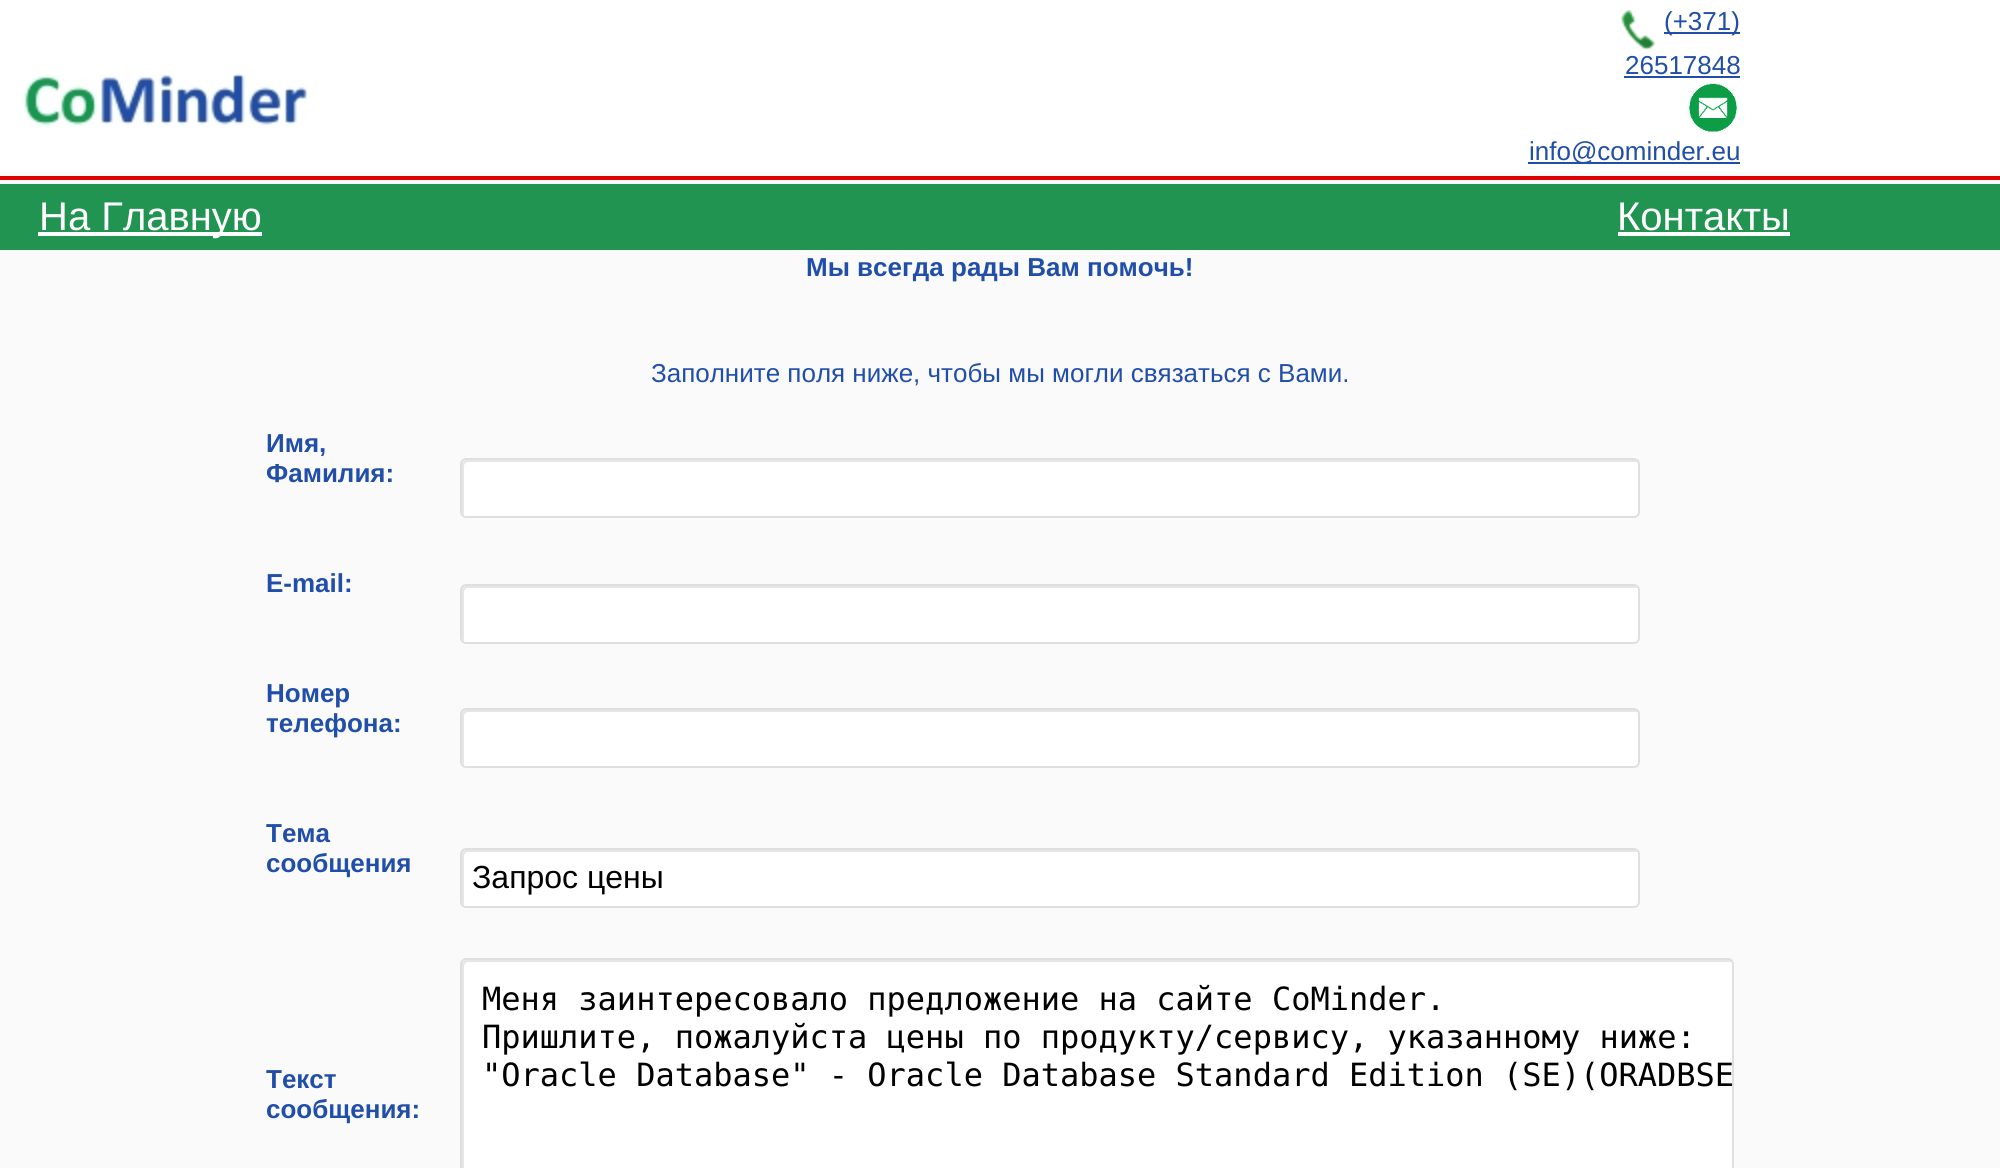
import math
import cairo


def round_path(ctx, x, y, w, h, r):
	ctx.new_sub_path()
	for i, (u, v) in enumerate([(x + w - r, y + h - r), (x + r, y + h - r), (x + r, y + r), (x + w - r, y + r)]):
		ctx.arc(u, v, r, i * math.pi / 2, (i + 1) * math.pi / 2)
	ctx.close_path()

def paste(ctx, path, x, y, w, h):
	ctx.save()
	ctx.set_source_surface(cairo.ImageSurface.create_from_png(path), x, y)
	ctx.rectangle(x, y, w, h)
	ctx.fill()
	ctx.restore()

def draw(ctx):
	ctx.set_source_rgb(0.98, 0.98, 0.98)
	ctx.paint()
	ctx.set_source_rgb(1, 1, 1)
	ctx.rectangle(0, 0, 2000, 172)
	ctx.fill()
	paste(ctx, 'media/1.png', 23, 73, 285, 54)
	paste(ctx, 'media/2.png', 1621, 10, 35, 40)
	ctx.set_source_rgb(0.129, 0.306, 0.659)
	ctx.rectangle(1664, 32, 76, 2)
	ctx.fill()
	ctx.select_font_face('Liberation Sans')
	ctx.set_font_size(26)
	ctx.move_to(1664, 30)
	ctx.show_text('(+371)')
	ctx.move_to(1625, 74)
	ctx.show_text('26517848')
	ctx.rectangle(1624, 76, 116, 2)
	ctx.fill()
	paste(ctx, 'media/3.png', 1689, 83, 48, 49)
	ctx.rectangle(1528, 162, 212, 2)
	ctx.fill()
	ctx.move_to(1529, 160)
	ctx.show_text('info@cominder.eu')
	ctx.set_source_rgb(0.867, 0, 0)
	ctx.rectangle(0, 176, 2000, 4)
	ctx.fill()
	ctx.set_source_rgb(0.125, 0.58, 0.314)
	ctx.rectangle(0, 184, 2000, 66)
	ctx.fill()
	ctx.set_source_rgb(1, 1, 1)
	ctx.rectangle(38, 232, 224, 4)
	ctx.fill()
	ctx.set_font_size(40)
	ctx.move_to(39, 230)
	ctx.show_text('На Главную')
	ctx.move_to(1617, 230)
	ctx.show_text('Контакты')
	ctx.rectangle(1618, 232, 172, 4)
	ctx.fill()
	ctx.select_font_face('Liberation Sans', cairo.FONT_SLANT_NORMAL, cairo.FONT_WEIGHT_BOLD)
	ctx.set_font_size(26)
	ctx.set_source_rgb(0.129, 0.306, 0.659)
	ctx.move_to(806, 276)
	ctx.show_text('Мы всегда рады Вам помочь!')
	ctx.select_font_face('Liberation Sans')
	ctx.move_to(651, 382)
	ctx.show_text('Заполните поля ниже, чтобы мы могли связаться с Вами.')
	ctx.select_font_face('Liberation Sans', cairo.FONT_SLANT_NORMAL, cairo.FONT_WEIGHT_BOLD)
	ctx.move_to(266, 452)
	ctx.show_text('Имя,')
	ctx.move_to(266, 482)
	ctx.show_text('Фамилия:')
	ctx.set_source_rgb(1, 1, 1)
	round_path(ctx, 460, 458, 1180, 60, 6)
	ctx.fill()
	ctx.set_source_rgb(0.902, 0.902, 0.902)
	ctx.new_path()
	ctx.move_to(468, 462)
	ctx.line_to(1636, 462)
	ctx.line_to(1638, 462)
	ctx.curve_to(1637, 461, 1636, 460, 1634, 460)
	ctx.line_to(466, 460)
	ctx.curve_to(464, 460, 462, 462, 462, 464)
	ctx.line_to(462, 512)
	ctx.curve_to(462, 514, 463, 515, 464, 516)
	ctx.line_to(464, 514)
	ctx.line_to(464, 466)
	ctx.curve_to(464, 464, 466, 462, 468, 462)
	ctx.close_path()
	ctx.fill()
	round_path(ctx, 461, 459, 1178, 58, 5)
	ctx.set_source_rgb(0.867, 0.878, 0.89)
	ctx.stroke()
	ctx.set_source_rgb(0.129, 0.306, 0.659)
	ctx.move_to(266, 592)
	ctx.show_text('E-mail:')
	ctx.set_source_rgb(1, 1, 1)
	round_path(ctx, 460, 584, 1180, 60, 6)
	ctx.fill()
	ctx.set_source_rgb(0.902, 0.902, 0.902)
	ctx.new_path()
	ctx.move_to(468, 588)
	ctx.line_to(1636, 588)
	ctx.line_to(1638, 588)
	ctx.curve_to(1637, 587, 1636, 586, 1634, 586)
	ctx.line_to(466, 586)
	ctx.curve_to(464, 586, 462, 588, 462, 590)
	ctx.line_to(462, 638)
	ctx.curve_to(462, 640, 463, 641, 464, 642)
	ctx.line_to(464, 640)
	ctx.line_to(464, 592)
	ctx.curve_to(464, 590, 466, 588, 468, 588)
	ctx.close_path()
	ctx.fill()
	round_path(ctx, 461, 585, 1178, 58, 5)
	ctx.set_source_rgb(0.867, 0.878, 0.89)
	ctx.stroke()
	ctx.set_source_rgb(0.129, 0.306, 0.659)
	ctx.move_to(266, 702)
	ctx.show_text('Номер')
	ctx.move_to(266, 732)
	ctx.show_text('телефона:')
	ctx.set_source_rgb(1, 1, 1)
	round_path(ctx, 460, 708, 1180, 60, 6)
	ctx.fill()
	ctx.set_source_rgb(0.902, 0.902, 0.902)
	ctx.new_path()
	ctx.move_to(468, 712)
	ctx.line_to(1636, 712)
	ctx.line_to(1638, 712)
	ctx.curve_to(1637, 711, 1636, 710, 1634, 710)
	ctx.line_to(466, 710)
	ctx.curve_to(464, 710, 462, 712, 462, 714)
	ctx.line_to(462, 762)
	ctx.curve_to(462, 764, 463, 765, 464, 766)
	ctx.line_to(464, 764)
	ctx.line_to(464, 716)
	ctx.curve_to(464, 714, 466, 712, 468, 712)
	ctx.close_path()
	ctx.fill()
	round_path(ctx, 461, 709, 1178, 58, 5)
	ctx.set_source_rgb(0.867, 0.878, 0.89)
	ctx.stroke()
	ctx.set_source_rgb(0.129, 0.306, 0.659)
	ctx.move_to(266, 842)
	ctx.show_text('Тема')
	ctx.move_to(266, 872)
	ctx.show_text('сообщения')
	ctx.set_source_rgb(1, 1, 1)
	round_path(ctx, 460, 848, 1180, 60, 6)
	ctx.fill()
	ctx.set_source_rgb(0.902, 0.902, 0.902)
	ctx.new_path()
	ctx.move_to(468, 852)
	ctx.line_to(1636, 852)
	ctx.line_to(1638, 852)
	ctx.curve_to(1637, 851, 1636, 850, 1634, 850)
	ctx.line_to(466, 850)
	ctx.curve_to(464, 850, 462, 852, 462, 854)
	ctx.line_to(462, 902)
	ctx.curve_to(462, 904, 463, 905, 464, 906)
	ctx.line_to(464, 904)
	ctx.line_to(464, 856)
	ctx.curve_to(464, 854, 466, 852, 468, 852)
	ctx.close_path()
	ctx.fill()
	round_path(ctx, 461, 849, 1178, 58, 5)
	ctx.set_source_rgb(0.867, 0.878, 0.89)
	ctx.stroke()
	ctx.select_font_face('Liberation Sans')
	ctx.set_font_size(32)
	ctx.set_source_rgb(0, 0, 0)
	ctx.move_to(472, 888)
	ctx.show_text('Запрос цены')
	ctx.set_source_rgb(1, 1, 1)
	round_path(ctx, 460, 958, 1274, 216, 6)
	ctx.fill()
	ctx.set_source_rgb(0.902, 0.902, 0.902)
	ctx.new_path()
	ctx.move_to(468, 962)
	ctx.line_to(1730, 962)
	ctx.line_to(1732, 962)
	ctx.curve_to(1731, 961, 1730, 960, 1728, 960)
	ctx.line_to(466, 960)
	ctx.curve_to(464, 960, 462, 962, 462, 964)
	ctx.line_to(462, 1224)
	ctx.curve_to(462, 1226, 463, 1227, 464, 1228)
	ctx.line_to(464, 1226)
	ctx.line_to(464, 966)
	ctx.curve_to(464, 964, 466, 962, 468, 962)
	ctx.close_path()
	ctx.fill()
	round_path(ctx, 461, 959, 1272, 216, 5)
	ctx.set_source_rgb(0.867, 0.878, 0.89)
	ctx.stroke()
	ctx.select_font_face('DejaVu Sans Mono')
	ctx.set_source_rgb(0, 0, 0)
	for x, y, s in [
		(482, 1010, 'Меня заинтересовало предложение на сайте CoMinder.'),
		(482, 1048, 'Пришлите, пожалуйста цены по продукту/сервису, указанному ниже:'),
		(482, 1086, '"Oracle Database" - Oracle Database Standard Edition (SE)'),
	]:
		ctx.move_to(x, y)
		ctx.show_text(s)
	ctx.save()
	round_path(ctx, 462, 960, 1270, 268, 4)
	ctx.clip()
	ctx.move_to(1580, 1086)
	ctx.show_text('(ORADBSE')
	ctx.restore()
	ctx.select_font_face('Liberation Sans', cairo.FONT_SLANT_NORMAL, cairo.FONT_WEIGHT_BOLD)
	ctx.set_font_size(26)
	ctx.set_source_rgb(0.129, 0.306, 0.659)
	ctx.move_to(266, 1088)
	ctx.show_text('Текст')
	ctx.move_to(266, 1118)
	ctx.show_text('сообщения:')


surface = cairo.ImageSurface(cairo.FORMAT_RGB24, 2000, 1168)
ctx = cairo.Context(surface)
options = cairo.FontOptions()
options.set_hint_metrics(cairo.HINT_METRICS_OFF)
options.set_hint_style(cairo.HINT_STYLE_NONE)
ctx.set_font_options(options)
ctx.set_miter_limit(4)
draw(ctx)
surface.write_to_png('image.png')
